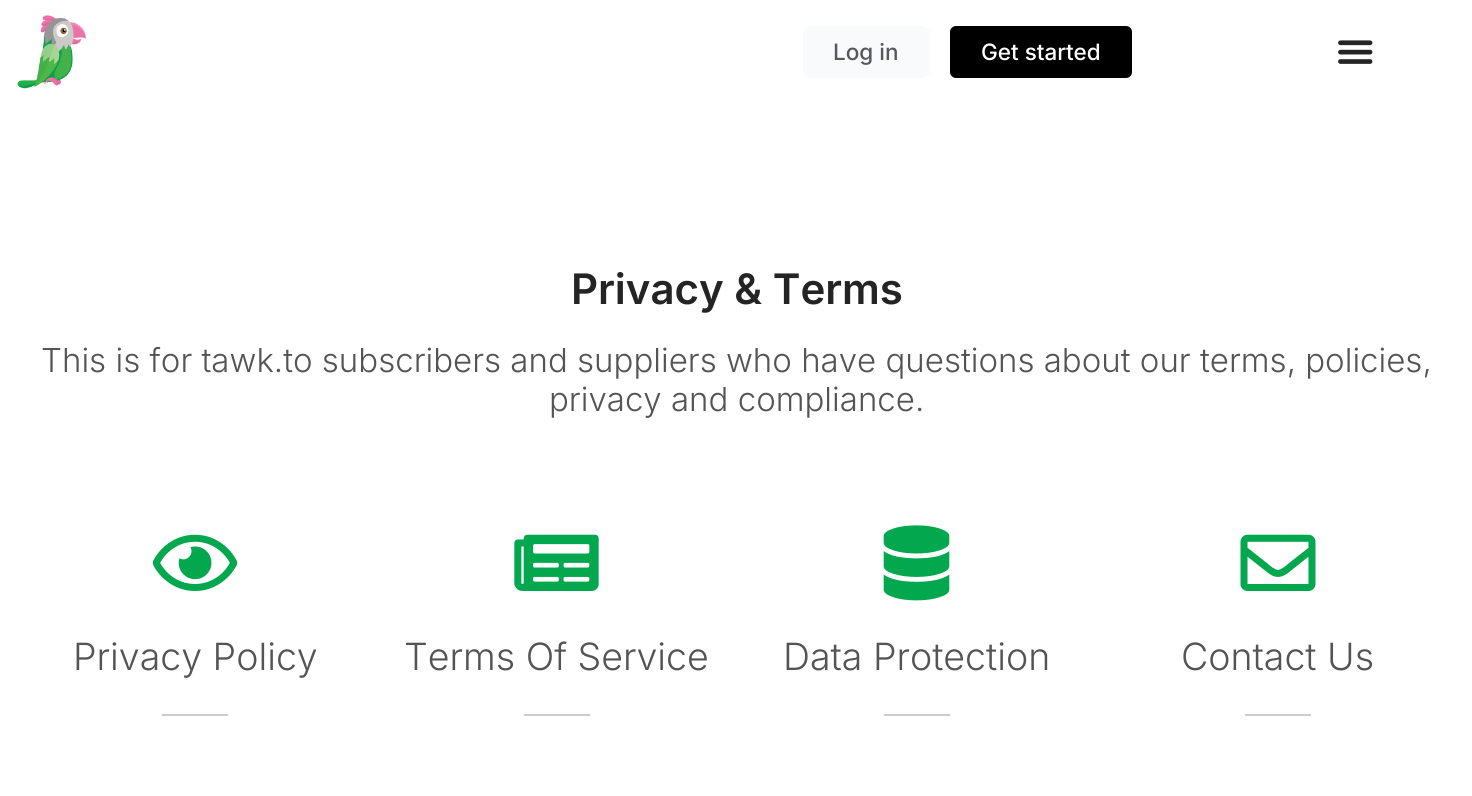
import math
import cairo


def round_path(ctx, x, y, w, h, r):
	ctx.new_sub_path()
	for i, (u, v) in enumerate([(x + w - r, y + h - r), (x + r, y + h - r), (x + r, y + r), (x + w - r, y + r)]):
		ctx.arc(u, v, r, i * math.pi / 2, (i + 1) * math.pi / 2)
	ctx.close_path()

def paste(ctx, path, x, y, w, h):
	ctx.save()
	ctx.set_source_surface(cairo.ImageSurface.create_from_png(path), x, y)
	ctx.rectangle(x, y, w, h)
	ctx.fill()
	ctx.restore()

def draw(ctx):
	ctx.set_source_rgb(1, 1, 1)
	ctx.paint()
	paste(ctx, 'media/1.png', 17, 15, 69, 74)
	ctx.set_source_rgb(0.973, 0.98, 0.988)
	round_path(ctx, 803, 26, 127, 52, 8)
	ctx.fill()
	ctx.select_font_face('Inter Medium')
	ctx.set_font_size(22.5)
	ctx.set_source_rgb(0.329, 0.349, 0.373)
	ctx.move_to(833, 60)
	ctx.show_text('Log in')
	ctx.set_source_rgb(0, 0, 0)
	round_path(ctx, 949, 25, 184, 54, 7)
	ctx.fill_preserve()
	ctx.set_source_rgb(1, 1, 1)
	ctx.stroke()
	ctx.move_to(981, 60)
	ctx.show_text('Get started')
	paste(ctx, 'media/2.png', 1338, 40, 35, 24)
	ctx.select_font_face('Inter SemiBold')
	ctx.set_font_size(42)
	ctx.set_source_rgb(0.141, 0.141, 0.141)
	ctx.move_to(571, 304)
	ctx.show_text('Privacy & Terms')
	ctx.select_font_face('Inter Light')
	ctx.set_font_size(33)
	ctx.set_source_rgb(0.329, 0.329, 0.329)
	ctx.move_to(41, 372)
	ctx.show_text('This is for tawk.to subscribers and suppliers who have questions about our terms, policies,')
	ctx.move_to(549, 411)
	ctx.show_text('privacy and compliance.')
	paste(ctx, 'media/3.png', 152, 534, 86, 57)
	ctx.set_font_size(37.5)
	ctx.move_to(73, 670)
	ctx.show_text('Privacy Policy')
	ctx.set_source_rgb(0.8, 0.8, 0.8)
	ctx.rectangle(162, 714, 66, 2)
	ctx.fill()
	paste(ctx, 'media/4.png', 514, 534, 85, 57)
	ctx.set_source_rgb(0.329, 0.329, 0.329)
	ctx.move_to(404, 670)
	ctx.show_text('Terms Of Service')
	ctx.set_source_rgb(0.8, 0.8, 0.8)
	ctx.rectangle(524, 714, 66, 2)
	ctx.fill()
	paste(ctx, 'media/5.png', 883, 525, 67, 76)
	ctx.set_source_rgb(0.329, 0.329, 0.329)
	ctx.move_to(783, 670)
	ctx.show_text('Data Protection')
	ctx.set_source_rgb(0.8, 0.8, 0.8)
	ctx.rectangle(884, 714, 66, 2)
	ctx.fill()
	paste(ctx, 'media/6.png', 1240, 534, 76, 57)
	ctx.set_source_rgb(0.329, 0.329, 0.329)
	ctx.move_to(1181, 670)
	ctx.show_text('Contact Us')
	ctx.set_source_rgb(0.8, 0.8, 0.8)
	ctx.rectangle(1245, 714, 66, 2)
	ctx.fill()


surface = cairo.ImageSurface(cairo.FORMAT_RGB24, 1472, 796)
ctx = cairo.Context(surface)
options = cairo.FontOptions()
options.set_hint_metrics(cairo.HINT_METRICS_OFF)
options.set_hint_style(cairo.HINT_STYLE_NONE)
ctx.set_font_options(options)
ctx.set_miter_limit(4)
draw(ctx)
surface.write_to_png('image.png')
